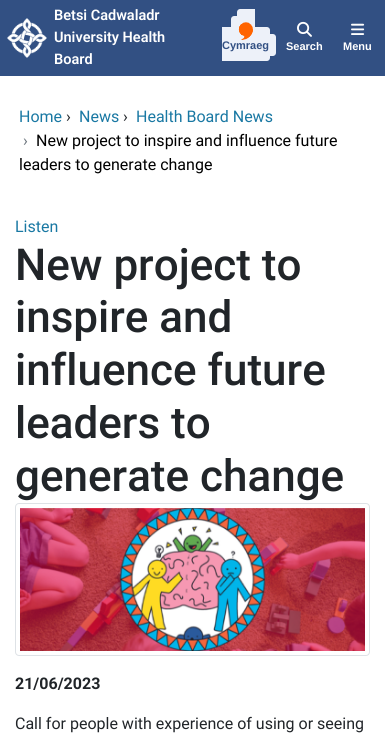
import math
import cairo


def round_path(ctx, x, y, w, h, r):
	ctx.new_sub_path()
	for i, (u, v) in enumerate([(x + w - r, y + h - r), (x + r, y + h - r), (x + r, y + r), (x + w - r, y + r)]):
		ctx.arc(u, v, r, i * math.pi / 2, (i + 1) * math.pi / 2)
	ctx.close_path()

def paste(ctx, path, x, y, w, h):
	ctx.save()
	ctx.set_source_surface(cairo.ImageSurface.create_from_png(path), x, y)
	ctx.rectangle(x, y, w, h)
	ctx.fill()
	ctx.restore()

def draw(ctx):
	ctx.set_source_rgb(1, 1, 1)
	ctx.paint()
	ctx.set_source_rgb(0.196, 0.314, 0.514)
	ctx.rectangle(0, 0, 385, 76)
	ctx.fill()
	paste(ctx, 'media/1.png', 7, 18, 40, 40)
	ctx.select_font_face('Roboto SemiBold')
	ctx.set_font_size(14.5)
	ctx.set_source_rgb(1, 1, 1)
	for x, y, s in [
		(54, 20, 'Betsi Cadwaladr'),
		(54, 42, 'University Health'),
		(54, 64, 'Board'),
	]:
		ctx.move_to(x, y)
		ctx.show_text(s)
	ctx.set_source_rgb(0.929, 0.945, 0.973)
	ctx.new_path()
	ctx.move_to(240, 9)
	ctx.line_to(255, 9)
	ctx.line_to(255, 52)
	ctx.line_to(240, 52)
	ctx.curve_to(238.5, 52, 237, 50.5, 237, 49)
	ctx.line_to(237, 12)
	ctx.curve_to(237, 10.5, 238.5, 9, 240, 9)
	ctx.close_path()
	ctx.fill()
	ctx.new_path()
	ctx.move_to(222, 27)
	ctx.line_to(267, 27)
	ctx.curve_to(268.5, 27, 270, 28.5, 270, 30)
	ctx.line_to(270, 58)
	ctx.curve_to(270, 59.5, 268.5, 61, 267, 61)
	ctx.line_to(222, 61)
	ctx.close_path()
	ctx.fill()
	ctx.new_path()
	ctx.move_to(234, 16)
	ctx.line_to(255, 16)
	ctx.line_to(255, 47)
	ctx.line_to(234, 47)
	ctx.curve_to(232.5, 47, 231, 45.5, 231, 44)
	ctx.line_to(231, 19)
	ctx.curve_to(231, 17.5, 232.5, 16, 234, 16)
	ctx.close_path()
	ctx.fill()
	ctx.new_path()
	ctx.move_to(222, 34)
	ctx.line_to(273, 34)
	ctx.curve_to(274.5, 34, 276, 35.5, 276, 37)
	ctx.line_to(276, 53)
	ctx.curve_to(276, 54.5, 274.5, 56, 273, 56)
	ctx.line_to(222, 56)
	ctx.close_path()
	ctx.fill()
	paste(ctx, 'media/2.png', 238, 22, 15, 18)
	ctx.select_font_face('Liberation Sans', cairo.FONT_SLANT_NORMAL, cairo.FONT_WEIGHT_BOLD)
	ctx.set_font_size(11)
	ctx.set_source_rgb(0.196, 0.314, 0.514)
	ctx.move_to(222, 49)
	ctx.show_text('Cymraeg')
	paste(ctx, 'media/3.png', 297, 21, 15, 16)
	ctx.set_source_rgb(1, 1, 1)
	ctx.move_to(286, 50)
	ctx.show_text('Search')
	paste(ctx, 'media/4.png', 351, 23, 14, 12)
	ctx.move_to(343, 50)
	ctx.show_text('Menu')
	ctx.select_font_face('Roboto')
	ctx.set_font_size(16)
	ctx.set_source_rgb(0.098, 0.471, 0.639)
	ctx.move_to(19, 122)
	ctx.show_text('Home')
	ctx.set_source_rgb(0.129, 0.145, 0.161)
	ctx.move_to(66, 122)
	ctx.show_text('›')
	ctx.set_source_rgb(0.098, 0.471, 0.639)
	ctx.move_to(79, 122)
	ctx.show_text('News')
	ctx.set_source_rgb(0.129, 0.145, 0.161)
	ctx.move_to(123, 122)
	ctx.show_text('›')
	ctx.set_source_rgb(0.098, 0.471, 0.639)
	ctx.move_to(136, 122)
	ctx.show_text('Health Board News')
	ctx.set_source_rgb(0.424, 0.459, 0.49)
	ctx.move_to(23, 146)
	ctx.show_text('›')
	ctx.set_source_rgb(0, 0, 0)
	ctx.move_to(36, 146)
	ctx.show_text('New project to inspire and influence future')
	ctx.move_to(19, 170)
	ctx.show_text('leaders to generate change')
	ctx.set_source_rgb(0.098, 0.471, 0.639)
	ctx.move_to(15, 232)
	ctx.show_text('Listen')
	ctx.select_font_face('Roboto Medium')
	ctx.set_font_size(44)
	ctx.set_source_rgb(0.129, 0.145, 0.161)
	for x, y, s in [
		(15, 280, 'New project to'),
		(15, 332, 'inspire and'),
		(15, 385, 'influence future'),
		(15, 438, 'leaders to'),
		(15, 491, 'generate change'),
	]:
		ctx.move_to(x, y)
		ctx.show_text(s)
	round_path(ctx, 15.5, 503.5, 354, 152, 3.5)
	ctx.set_source_rgb(0.871, 0.886, 0.902)
	ctx.set_line_width(1)
	ctx.stroke()
	paste(ctx, 'media/5.png', 20, 508, 345, 143)
	ctx.select_font_face('Roboto', cairo.FONT_SLANT_NORMAL, cairo.FONT_WEIGHT_BOLD)
	ctx.set_font_size(16)
	ctx.set_source_rgb(0.129, 0.145, 0.161)
	ctx.move_to(15, 689)
	ctx.show_text('21/06/2023')
	ctx.select_font_face('Roboto')
	ctx.move_to(15, 729)
	ctx.show_text('Call for people with experience of using or seeing')


surface = cairo.ImageSurface(cairo.FORMAT_RGB24, 385, 744)
ctx = cairo.Context(surface)
options = cairo.FontOptions()
options.set_hint_metrics(cairo.HINT_METRICS_OFF)
options.set_hint_style(cairo.HINT_STYLE_NONE)
ctx.set_font_options(options)
ctx.set_miter_limit(4)
draw(ctx)
surface.write_to_png('image.png')
